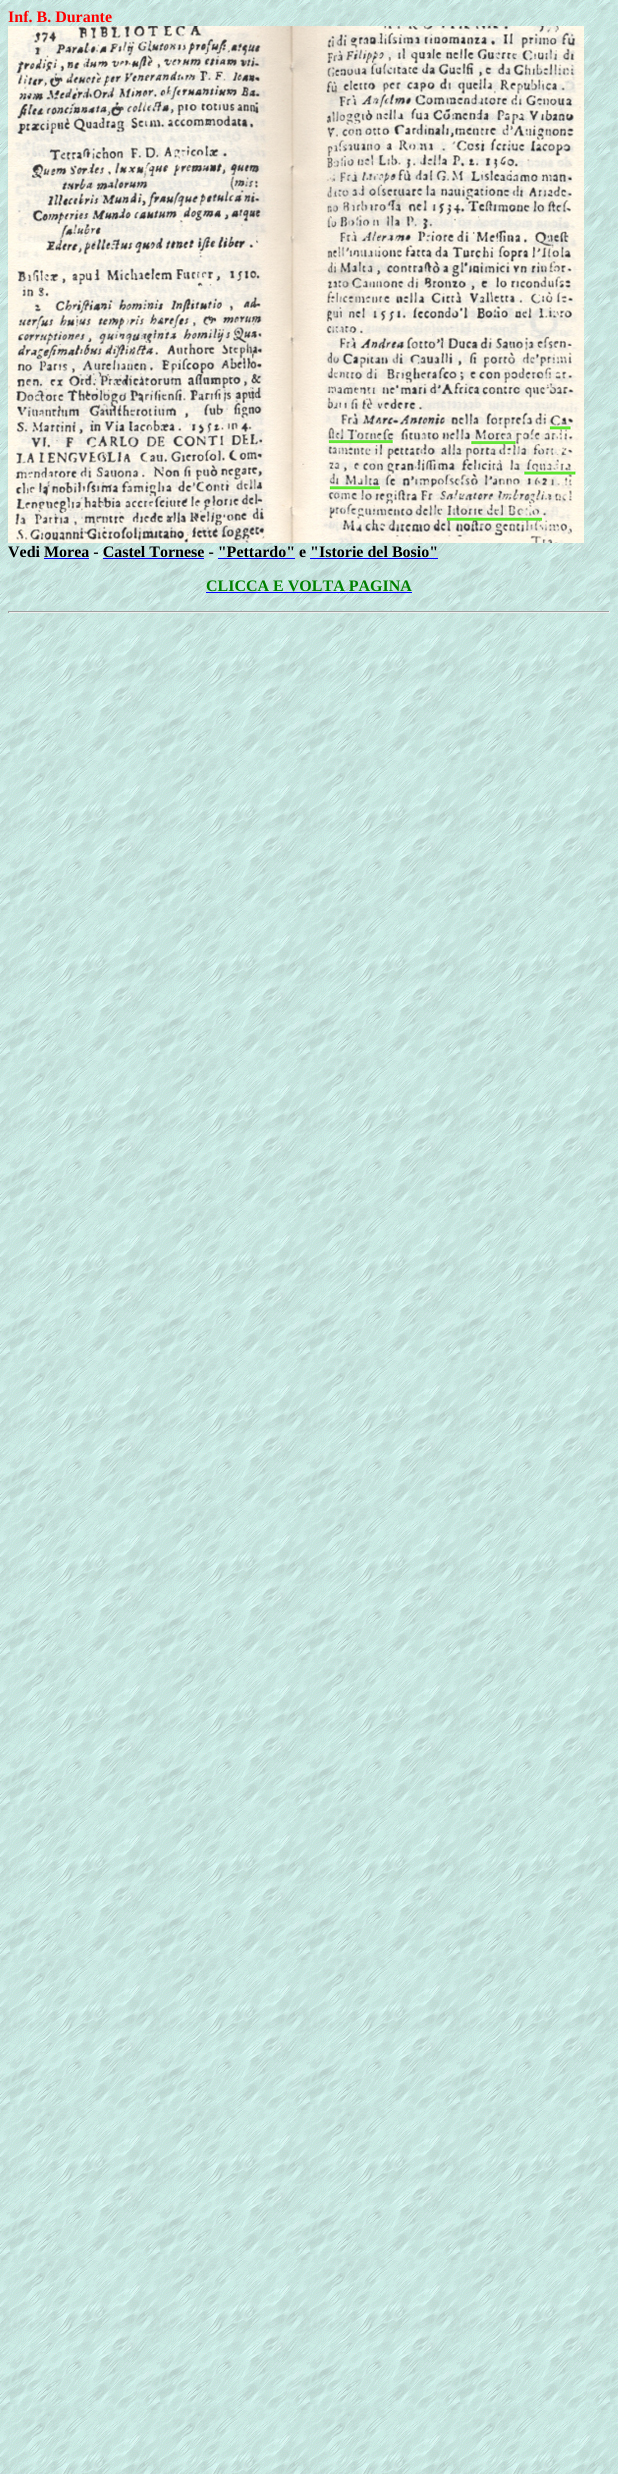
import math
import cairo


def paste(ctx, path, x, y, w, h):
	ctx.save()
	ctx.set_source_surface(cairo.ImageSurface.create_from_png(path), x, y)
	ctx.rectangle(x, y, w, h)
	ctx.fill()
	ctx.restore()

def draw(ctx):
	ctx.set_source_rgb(1, 1, 1)
	ctx.paint()
	paste(ctx, 'media/1.png', 0, 0, 618, 2474)
	ctx.select_font_face('Liberation Serif', cairo.FONT_SLANT_NORMAL, cairo.FONT_WEIGHT_BOLD)
	ctx.set_font_size(16)
	ctx.set_source_rgb(1, 0, 0)
	ctx.move_to(8, 22)
	ctx.show_text('Inf. B. Durante')
	paste(ctx, 'media/2.png', 8, 26, 576, 517)
	ctx.set_source_rgb(0, 0, 0)
	ctx.move_to(8, 557)
	ctx.show_text('Vedi Morea - Castel Tornese - "Pettardo" e "Istorie del Bosio"')
	ctx.set_source_rgb(0, 0, 1)
	ctx.rectangle(44, 558, 45, 1)
	ctx.rectangle(103, 558, 101, 1)
	ctx.rectangle(218, 558, 77, 1)
	ctx.rectangle(310, 558, 128, 1)
	ctx.fill()
	ctx.set_source_rgb(0, 0.502, 0)
	ctx.move_to(206, 591)
	ctx.show_text('CLICCA E VOLTA PAGINA')
	ctx.set_source_rgb(0, 0, 1)
	ctx.rectangle(206, 592, 206, 1)
	ctx.fill()
	ctx.set_source_rgb(0.624, 0.624, 0.624)
	ctx.rectangle(8, 611, 602, 1)
	ctx.fill()
	ctx.set_source_rgb(0.933, 0.933, 0.933)
	ctx.rectangle(609, 611, 1, 2)
	ctx.rectangle(8, 612, 602, 1)
	ctx.fill()
	ctx.set_source_rgb(0.624, 0.624, 0.624)
	ctx.rectangle(8, 611, 1, 2)
	ctx.fill()


surface = cairo.ImageSurface(cairo.FORMAT_RGB24, 618, 2474)
ctx = cairo.Context(surface)
options = cairo.FontOptions()
options.set_hint_metrics(cairo.HINT_METRICS_OFF)
options.set_hint_style(cairo.HINT_STYLE_NONE)
ctx.set_font_options(options)
ctx.set_miter_limit(4)
draw(ctx)
surface.write_to_png('image.png')
